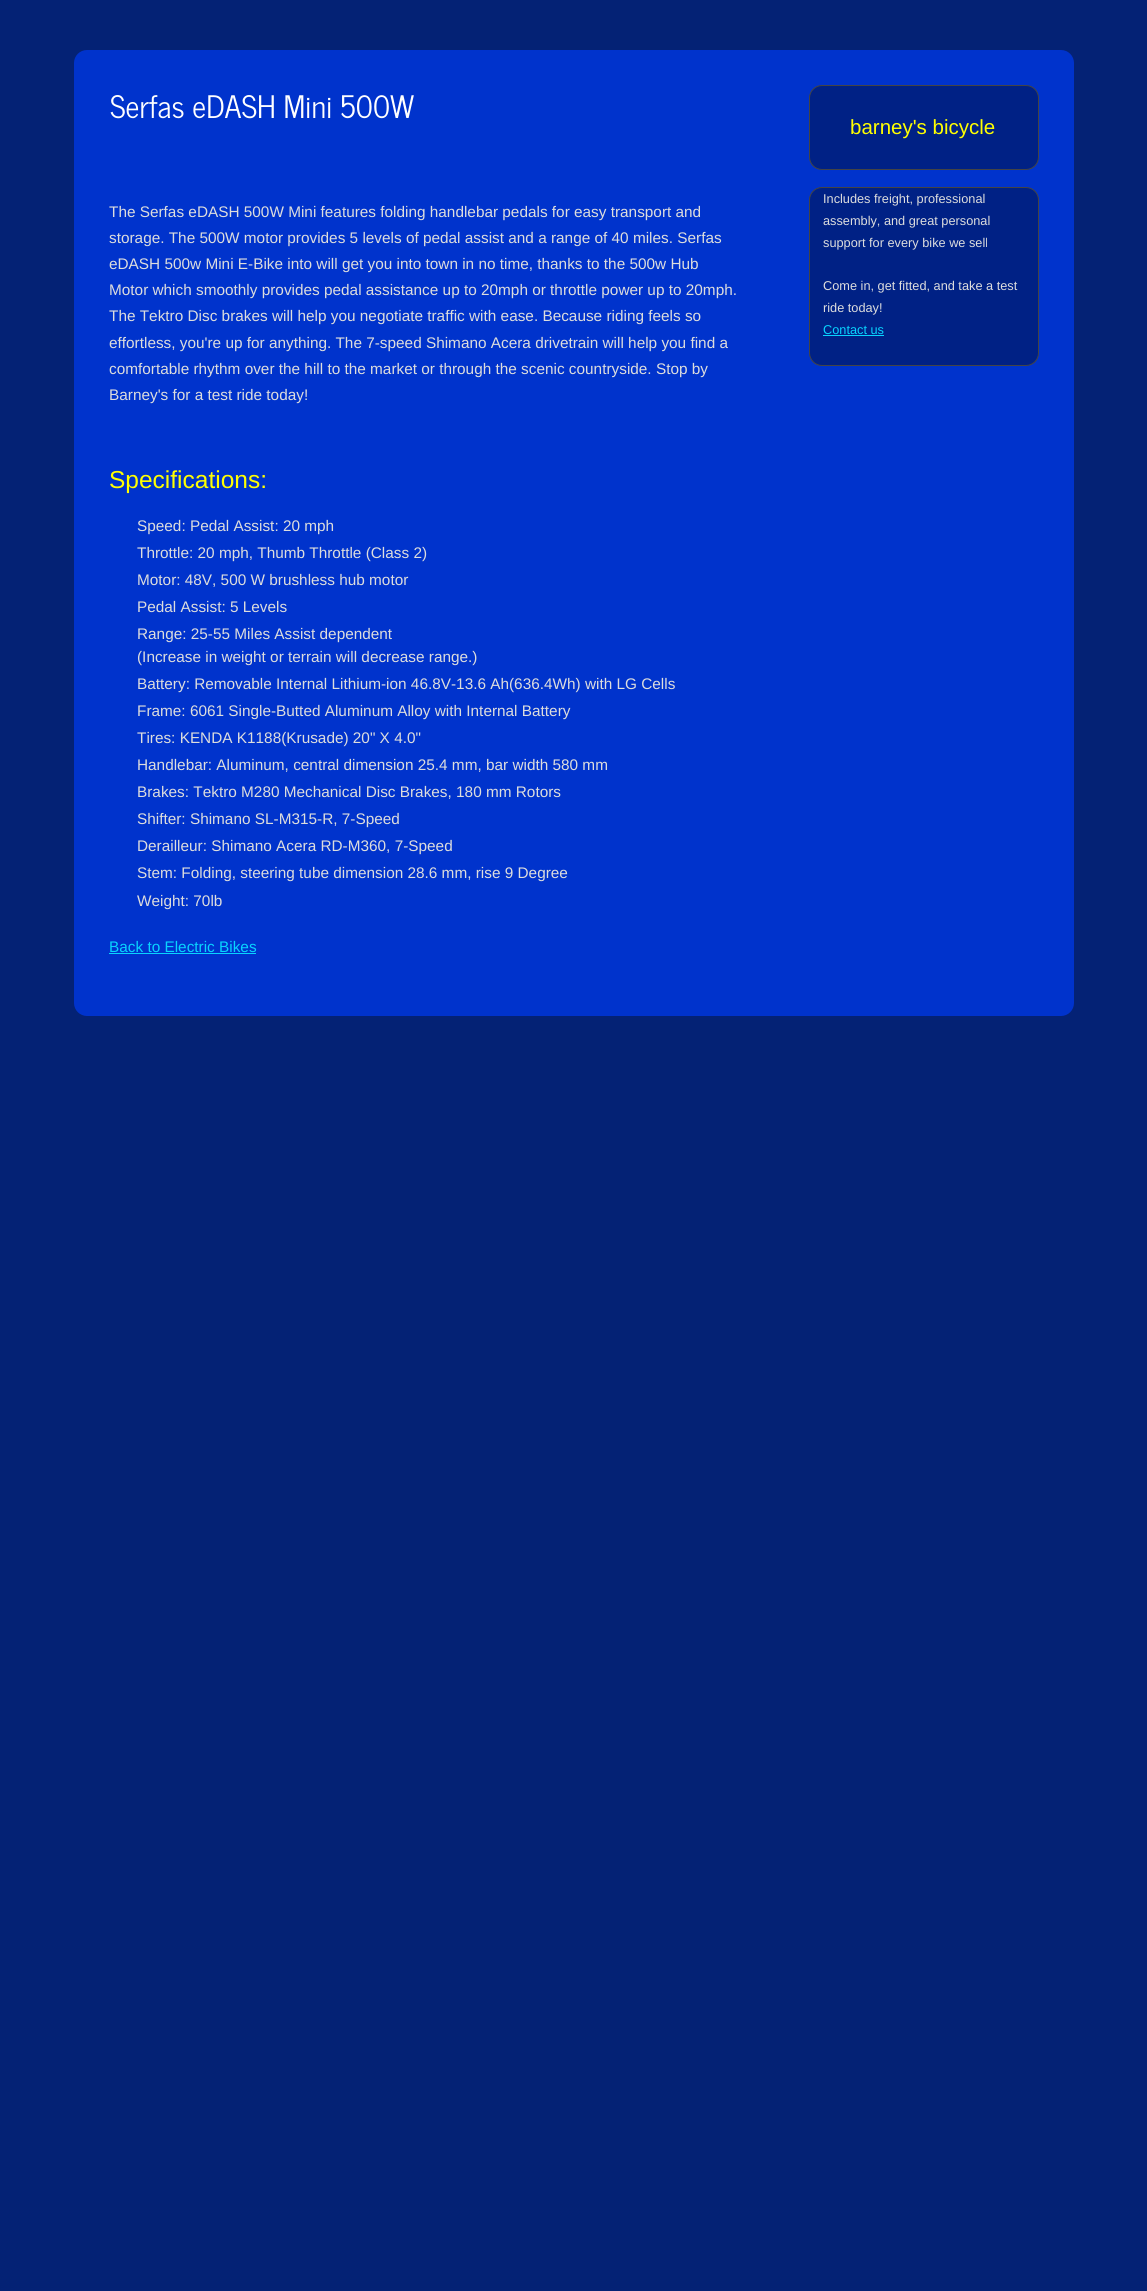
import math
import cairo


def round_path(ctx, x, y, w, h, r):
	ctx.new_sub_path()
	for i, (u, v) in enumerate([(x + w - r, y + h - r), (x + r, y + h - r), (x + r, y + r), (x + w - r, y + r)]):
		ctx.arc(u, v, r, i * math.pi / 2, (i + 1) * math.pi / 2)
	ctx.close_path()

def draw(ctx):
	ctx.set_source_rgb(0.016, 0.133, 0.459)
	ctx.paint()
	ctx.set_source_rgb(0, 0.2, 0.8)
	round_path(ctx, 74, 50, 1000, 966, 13)
	ctx.fill()
	ctx.select_font_face('News Cycle')
	ctx.set_font_size(30.75)
	ctx.set_source_rgb(1, 1, 1)
	ctx.move_to(110, 118)
	ctx.show_text('Serfas eDASH Mini 500W')
	ctx.select_font_face('Liberation Sans')
	ctx.set_font_size(15.35)
	ctx.set_source_rgb(0.867, 0.867, 0.867)
	for x, y, s in [
		(109, 217, 'The Serfas eDASH 500W Mini features folding handlebar pedals for easy transport and'),
		(109, 243, 'storage. The 500W motor provides 5 levels of pedal assist and a range of 40 miles. Serfas'),
		(109, 269, 'eDASH 500w Mini E-Bike into will get you into town in no time, thanks to the 500w Hub'),
		(109, 295, 'Motor which smoothly provides pedal assistance up to 20mph or throttle power up to 20mph.'),
		(109, 321, 'The Tektro Disc brakes will help you negotiate traffic with ease. Because riding feels so'),
		(109, 348, 'effortless, you\'re up for anything. The 7-speed Shimano Acera drivetrain will help you find a'),
		(109, 374, 'comfortable rhythm over the hill to the market or through the scenic countryside. Stop by'),
		(109, 400, 'Barney\'s for a test ride today!'),
	]:
		ctx.move_to(x, y)
		ctx.show_text(s)
	ctx.set_source_rgb(0, 0.129, 0.522)
	round_path(ctx, 809.5, 85.5, 229, 84, 12.5)
	ctx.fill_preserve()
	ctx.set_source_rgb(0.267, 0.267, 0.267)
	ctx.set_line_width(1)
	ctx.stroke()
	ctx.set_font_size(20.5)
	ctx.set_source_rgb(1, 1, 0)
	ctx.move_to(850, 134)
	ctx.show_text('barney\'s bicycle')
	ctx.set_source_rgb(0, 0.129, 0.522)
	round_path(ctx, 809.5, 187.5, 229, 178, 12.5)
	ctx.fill_preserve()
	ctx.set_source_rgb(0.267, 0.267, 0.267)
	ctx.stroke()
	ctx.set_font_size(12.75)
	ctx.set_source_rgb(0.867, 0.867, 0.867)
	for x, y, s in [
		(823, 203, 'Includes freight, professional'),
		(823, 225, 'assembly, and great personal'),
		(823, 247, 'support for every bike we sell'),
		(823, 290, 'Come in, get fitted, and take a test'),
		(823, 312, 'ride today!'),
	]:
		ctx.move_to(x, y)
		ctx.show_text(s)
	ctx.set_source_rgb(0.035, 0.831, 1)
	ctx.move_to(823, 334)
	ctx.show_text('Contact us')
	ctx.rectangle(823, 335, 61, 1)
	ctx.fill()
	ctx.set_font_size(24.5)
	ctx.set_source_rgb(1, 1, 0)
	ctx.move_to(109, 488)
	ctx.show_text('Specifications:')
	ctx.set_font_size(15.35)
	ctx.set_source_rgb(0.867, 0.867, 0.867)
	for x, y, s in [
		(137, 531, 'Speed: Pedal Assist: 20 mph'),
		(137, 558, 'Throttle: 20 mph, Thumb Throttle (Class 2)'),
		(137, 585, 'Motor: 48V, 500 W brushless hub motor'),
		(137, 612, 'Pedal Assist: 5 Levels'),
		(137, 639, 'Range: 25-55 Miles Assist dependent'),
		(137, 662, '(Increase in weight or terrain will decrease range.)'),
		(137, 689, 'Battery: Removable Internal Lithium-ion 46.8V-13.6 Ah(636.4Wh) with LG Cells'),
		(137, 716, 'Frame: 6061 Single-Butted Aluminum Alloy with Internal Battery'),
		(137, 743, 'Tires: KENDA K1188(Krusade) 20" X 4.0"'),
		(137, 770, 'Handlebar: Aluminum, central dimension 25.4 mm, bar width 580 mm'),
		(137, 797, 'Brakes: Tektro M280 Mechanical Disc Brakes, 180 mm Rotors'),
		(137, 824, 'Shifter: Shimano SL-M315-R, 7-Speed'),
		(137, 851, 'Derailleur: Shimano Acera RD-M360, 7-Speed'),
		(137, 878, 'Stem: Folding, steering tube dimension 28.6 mm, rise 9 Degree'),
		(137, 906, 'Weight: 70lb'),
	]:
		ctx.move_to(x, y)
		ctx.show_text(s)
	ctx.set_source_rgb(0.035, 0.831, 1)
	ctx.move_to(109, 952)
	ctx.show_text('Back to Electric Bikes')
	ctx.rectangle(109, 953, 147, 1)
	ctx.fill()


surface = cairo.ImageSurface(cairo.FORMAT_RGB24, 1147, 2291)
ctx = cairo.Context(surface)
options = cairo.FontOptions()
options.set_hint_metrics(cairo.HINT_METRICS_OFF)
options.set_hint_style(cairo.HINT_STYLE_NONE)
ctx.set_font_options(options)
ctx.set_miter_limit(4)
draw(ctx)
surface.write_to_png('image.png')
